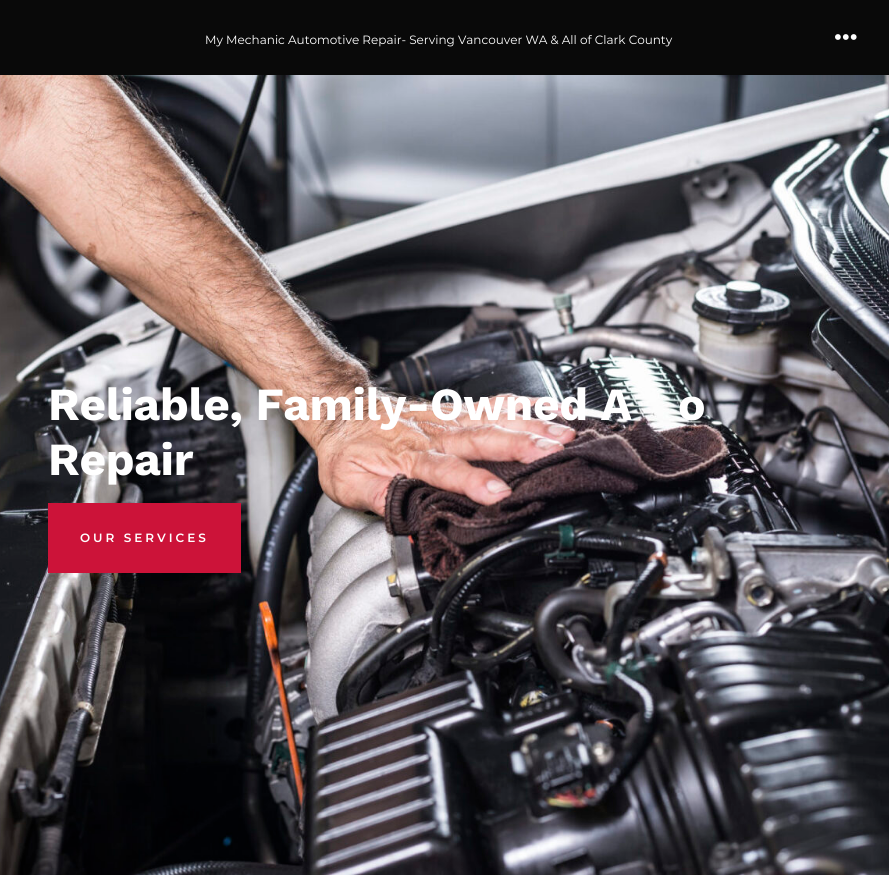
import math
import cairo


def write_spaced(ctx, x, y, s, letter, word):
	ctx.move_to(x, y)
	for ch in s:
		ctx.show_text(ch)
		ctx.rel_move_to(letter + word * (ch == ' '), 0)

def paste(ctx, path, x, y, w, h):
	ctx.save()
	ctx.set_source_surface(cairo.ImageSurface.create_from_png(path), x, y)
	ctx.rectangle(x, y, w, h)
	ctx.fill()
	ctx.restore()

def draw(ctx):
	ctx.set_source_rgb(1, 1, 1)
	ctx.paint()
	ctx.set_source_rgb(0.039, 0.039, 0.039)
	ctx.rectangle(0, 0, 889, 75)
	ctx.fill()
	ctx.select_font_face('Montserrat')
	ctx.set_font_size(12)
	ctx.set_source_rgb(1, 1, 1)
	ctx.move_to(205, 44)
	ctx.show_text('My Mechanic Automotive Repair- Serving Vancouver WA & All of Clark County')
	paste(ctx, 'media/1.png', 835, 34, 22, 6)
	paste(ctx, 'media/2.png', 0, 75, 889, 800)
	ctx.select_font_face('Work Sans', cairo.FONT_SLANT_NORMAL, cairo.FONT_WEIGHT_BOLD)
	ctx.set_font_size(46)
	for x, y, s in [
		(48, 420, 'Reliable, Family-Owned A'),
		(678, 420, 'o'),
		(48, 475, 'Repair'),
	]:
		write_spaced(ctx, x, y, s, -0.3, 0)
	ctx.set_source_rgb(0.8, 0.078, 0.224)
	ctx.rectangle(48, 503, 193, 70)
	ctx.fill()
	ctx.select_font_face('Montserrat SemiBold')
	ctx.set_font_size(12)
	ctx.set_source_rgb(1, 1, 1)
	write_spaced(ctx, 80, 542, 'OUR SERVICES', 3, 0)


surface = cairo.ImageSurface(cairo.FORMAT_RGB24, 889, 880)
ctx = cairo.Context(surface)
options = cairo.FontOptions()
options.set_hint_metrics(cairo.HINT_METRICS_OFF)
options.set_hint_style(cairo.HINT_STYLE_NONE)
ctx.set_font_options(options)
ctx.set_miter_limit(4)
draw(ctx)
surface.write_to_png('image.png')
